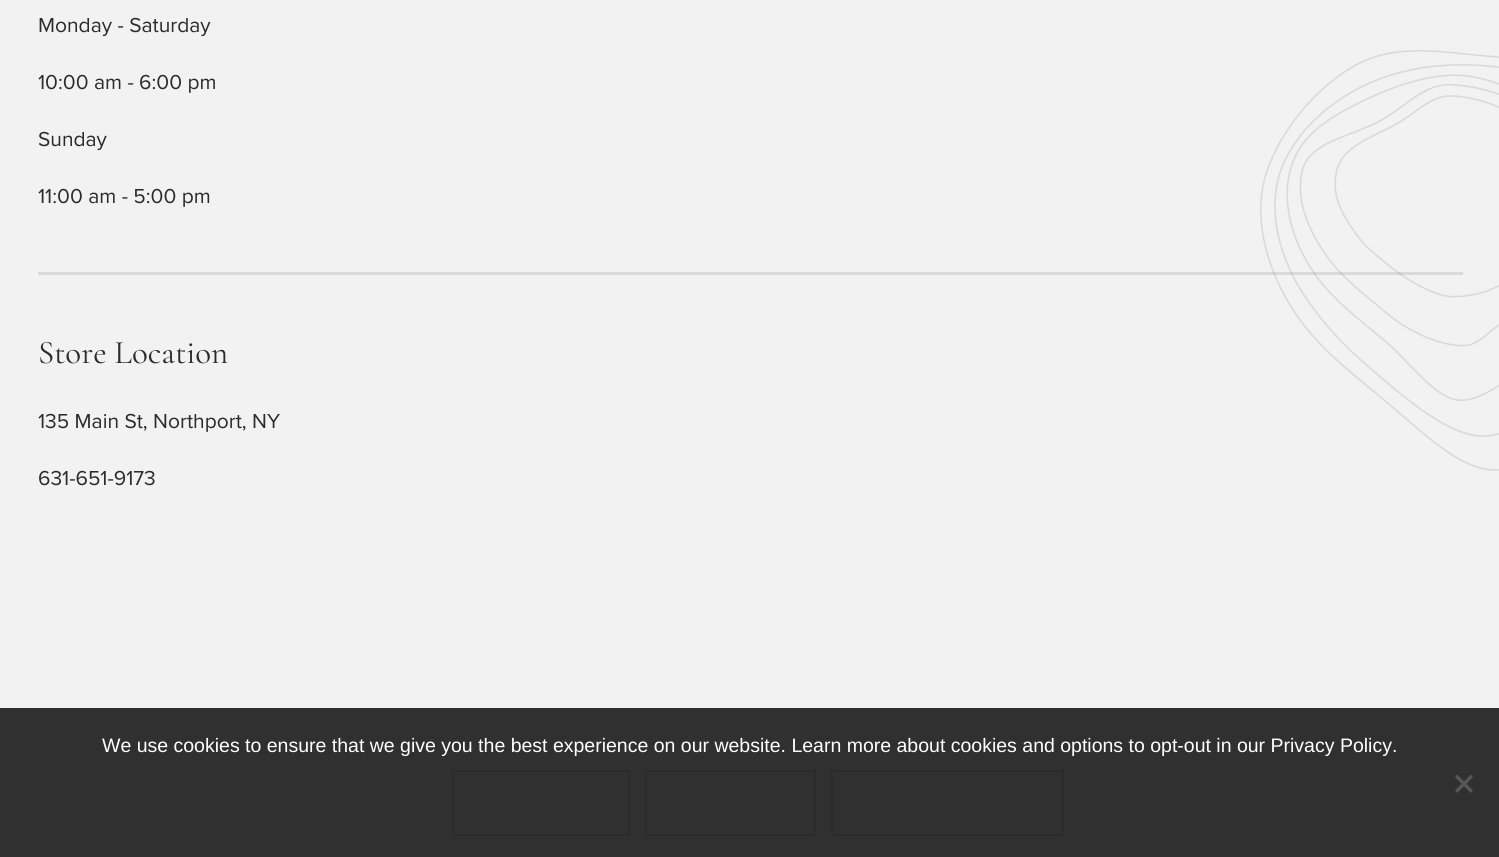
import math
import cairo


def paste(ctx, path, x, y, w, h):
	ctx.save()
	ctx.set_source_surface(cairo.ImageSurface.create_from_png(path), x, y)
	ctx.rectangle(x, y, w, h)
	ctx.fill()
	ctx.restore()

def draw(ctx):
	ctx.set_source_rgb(0.949, 0.949, 0.949)
	ctx.paint()
	ctx.select_font_face('Proxima Nova')
	ctx.set_font_size(21)
	ctx.set_source_rgb(0.169, 0.169, 0.169)
	for x, y, s in [
		(38, 32, 'Monday - Saturday'),
		(38, 89, '10:00 am - 6:00 pm'),
		(38, 146, 'Sunday'),
		(38, 203, '11:00 am - 5:00 pm'),
	]:
		ctx.move_to(x, y)
		ctx.show_text(s)
	ctx.set_source_rgb(0.855, 0.855, 0.855)
	ctx.rectangle(38, 272, 1425, 3)
	ctx.fill()
	ctx.select_font_face('Cormorant Garamond')
	ctx.set_font_size(33)
	ctx.set_source_rgb(0.169, 0.169, 0.169)
	ctx.move_to(38, 363)
	ctx.show_text('Store Location')
	ctx.select_font_face('Proxima Nova')
	ctx.set_font_size(21)
	ctx.move_to(38, 428)
	ctx.show_text('135 Main St, Northport, NY')
	ctx.move_to(38, 485)
	ctx.show_text('631-651-9173')
	paste(ctx, 'media/1.png', 1260, 50, 239, 421)
	ctx.set_source_rgb(0.188, 0.188, 0.188)
	ctx.rectangle(0, 708, 1499, 149)
	ctx.fill()
	ctx.select_font_face('Liberation Sans')
	ctx.set_font_size(19.5)
	ctx.set_source_rgb(1, 1, 1)
	ctx.move_to(102, 752)
	ctx.show_text('We use cookies to ensure that we give you the best experience on our website. Learn more about cookies and options to opt-out in our Privacy Policy.')
	ctx.rectangle(453, 771, 176, 64)
	ctx.set_source_rgb(0.169, 0.169, 0.169)
	ctx.stroke()
	ctx.rectangle(646, 771, 169, 64)
	ctx.stroke()
	ctx.rectangle(832, 771, 231, 64)
	ctx.stroke()
	ctx.set_source_rgb(0.345, 0.345, 0.345)
	ctx.new_path()
	ctx.move_to(1471, 774.5)
	ctx.line_to(1473, 777)
	ctx.line_to(1457, 793)
	ctx.line_to(1455, 790.5)
	ctx.close_path()
	ctx.fill()
	ctx.new_path()
	ctx.move_to(1455, 777)
	ctx.line_to(1457, 774.5)
	ctx.line_to(1473, 790.5)
	ctx.line_to(1471, 793)
	ctx.close_path()
	ctx.fill()


surface = cairo.ImageSurface(cairo.FORMAT_RGB24, 1499, 857)
ctx = cairo.Context(surface)
options = cairo.FontOptions()
options.set_hint_metrics(cairo.HINT_METRICS_OFF)
options.set_hint_style(cairo.HINT_STYLE_NONE)
ctx.set_font_options(options)
ctx.set_miter_limit(4)
draw(ctx)
surface.write_to_png('image.png')
